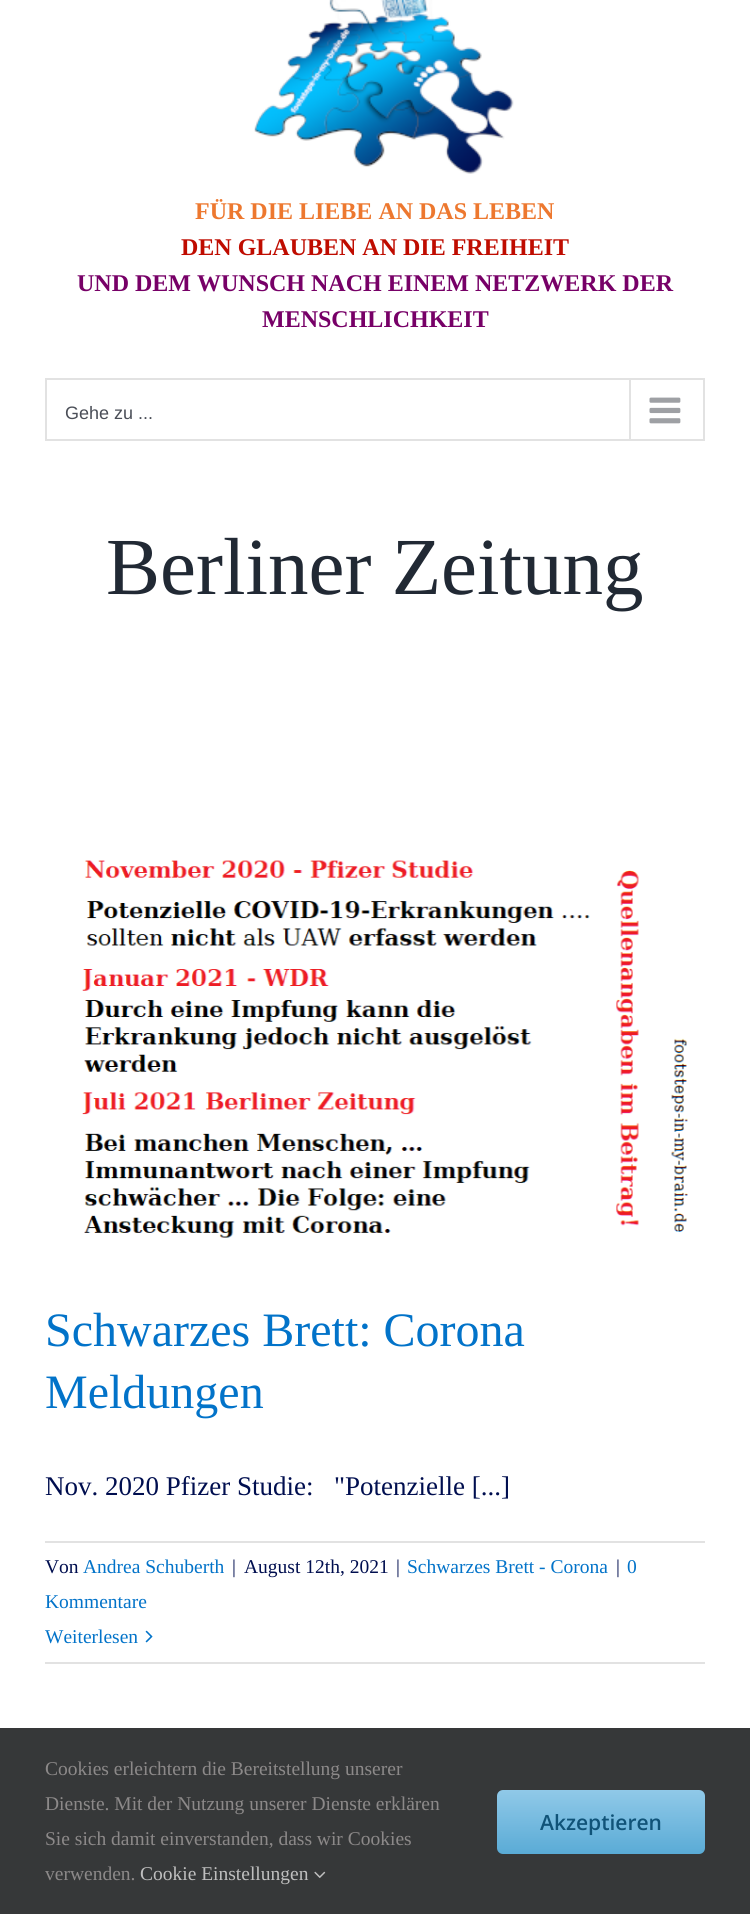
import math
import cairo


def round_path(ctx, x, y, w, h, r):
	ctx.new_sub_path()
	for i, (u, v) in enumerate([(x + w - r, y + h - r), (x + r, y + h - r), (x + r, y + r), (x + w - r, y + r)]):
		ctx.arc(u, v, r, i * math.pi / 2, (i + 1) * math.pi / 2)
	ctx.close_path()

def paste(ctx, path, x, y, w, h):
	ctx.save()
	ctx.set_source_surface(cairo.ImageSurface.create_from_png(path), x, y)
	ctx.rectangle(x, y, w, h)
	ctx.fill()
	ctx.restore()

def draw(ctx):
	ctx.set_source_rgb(1, 1, 1)
	ctx.paint()
	paste(ctx, 'media/1.png', 254, 0, 260, 174)
	ctx.select_font_face('Liberation Serif', cairo.FONT_SLANT_NORMAL, cairo.FONT_WEIGHT_BOLD)
	ctx.set_font_size(24)
	ctx.set_source_rgb(0.929, 0.471, 0.184)
	ctx.move_to(195, 219)
	ctx.show_text('FÜR DIE LIEBE AN DAS LEBEN')
	ctx.set_source_rgb(0.749, 0.047, 0)
	ctx.move_to(181, 255)
	ctx.show_text('DEN GLAUBEN AN DIE FREIHEIT')
	ctx.set_source_rgb(0.467, 0, 0.404)
	ctx.move_to(77, 291)
	ctx.show_text('UND DEM WUNSCH NACH EINEM NETZWERK DER')
	ctx.move_to(262, 327)
	ctx.show_text('MENSCHLICHKEIT')
	ctx.rectangle(46, 379, 658, 61)
	ctx.set_source_rgb(0.886, 0.886, 0.886)
	ctx.stroke()
	ctx.select_font_face('Liberation Sans')
	ctx.set_font_size(18)
	ctx.set_source_rgb(0.29, 0.306, 0.341)
	ctx.move_to(65, 419)
	ctx.show_text('Gehe zu ...')
	ctx.set_source_rgb(0.886, 0.886, 0.886)
	ctx.rectangle(629, 380, 2, 60)
	ctx.fill()
	paste(ctx, 'media/2.png', 649, 397, 32, 27)
	ctx.select_font_face('Liberation Serif')
	ctx.set_font_size(81)
	ctx.set_source_rgb(0.129, 0.161, 0.204)
	ctx.move_to(106, 594)
	ctx.show_text('Berliner Zeitung')
	paste(ctx, 'media/3.png', 82, 860, 606, 378)
	ctx.set_font_size(48)
	ctx.set_source_rgb(0.008, 0.451, 0.788)
	ctx.move_to(45, 1346)
	ctx.show_text('Schwarzes Brett: Corona')
	ctx.move_to(45, 1408)
	ctx.show_text('Meldungen')
	ctx.set_font_size(27)
	ctx.set_source_rgb(0, 0.055, 0.31)
	ctx.move_to(45, 1495)
	ctx.show_text('Nov. 2020 Pfizer Studie:')
	ctx.move_to(334, 1495)
	ctx.show_text('"Potenzielle [...]')
	ctx.set_source_rgb(0.886, 0.886, 0.886)
	ctx.rectangle(45, 1541, 660, 2)
	ctx.fill()
	ctx.rectangle(45, 1662, 660, 2)
	ctx.fill()
	ctx.set_font_size(19.5)
	ctx.set_source_rgb(0, 0.055, 0.31)
	ctx.move_to(45, 1573)
	ctx.show_text('Von')
	ctx.set_source_rgb(0.008, 0.451, 0.788)
	ctx.move_to(83, 1573)
	ctx.show_text('Andrea Schuberth')
	ctx.set_source_rgb(0, 0.055, 0.31)
	for x, y, s in [
		(232, 1573, '|'),
		(244, 1573, 'August 12th, 2021'),
		(396, 1573, '|'),
	]:
		ctx.move_to(x, y)
		ctx.show_text(s)
	ctx.set_source_rgb(0.008, 0.451, 0.788)
	ctx.move_to(407, 1573)
	ctx.show_text('Schwarzes Brett - Corona')
	ctx.set_source_rgb(0, 0.055, 0.31)
	ctx.move_to(616, 1573)
	ctx.show_text('|')
	ctx.set_source_rgb(0.008, 0.451, 0.788)
	for x, y, s in [
		(627, 1573, '0'),
		(45, 1608, 'Kommentare'),
		(45, 1643, 'Weiterlesen'),
	]:
		ctx.move_to(x, y)
		ctx.show_text(s)
	paste(ctx, 'media/4.png', 145, 1630, 8, 13)
	ctx.set_source_rgb(0.212, 0.22, 0.224)
	ctx.rectangle(0, 1728, 750, 186)
	ctx.fill()
	ctx.set_source_rgb(0.549, 0.537, 0.537)
	for x, y, s in [
		(45, 1775, 'Cookies erleichtern die Bereitstellung unserer'),
		(45, 1810, 'Dienste. Mit der Nutzung unserer Dienste erklären'),
		(45, 1845, 'Sie sich damit einverstanden, dass wir Cookies'),
		(45, 1880, 'verwenden.'),
	]:
		ctx.move_to(x, y)
		ctx.show_text(s)
	ctx.set_source_rgb(0.749, 0.749, 0.749)
	ctx.move_to(140, 1880)
	ctx.show_text('Cookie Einstellungen')
	paste(ctx, 'media/5.png', 314, 1871, 12, 7)
	gradient = cairo.LinearGradient(601, 1790, 601, 1854)
	gradient.add_color_stop_rgba(0, 0.565, 0.788, 0.91, 1)
	gradient.add_color_stop_rgba(1, 0.353, 0.671, 0.839, 1)
	ctx.set_source(gradient)
	round_path(ctx, 497, 1790, 208, 64, 6)
	ctx.fill()
	ctx.select_font_face('Open Sans SemiBold')
	ctx.set_font_size(21)
	ctx.set_source_rgb(0.063, 0.325, 0.471)
	ctx.move_to(540, 1830)
	ctx.show_text('Akzeptieren')


surface = cairo.ImageSurface(cairo.FORMAT_RGB24, 750, 1914)
ctx = cairo.Context(surface)
options = cairo.FontOptions()
options.set_hint_metrics(cairo.HINT_METRICS_OFF)
options.set_hint_style(cairo.HINT_STYLE_NONE)
ctx.set_font_options(options)
ctx.set_miter_limit(4)
draw(ctx)
surface.write_to_png('image.png')
